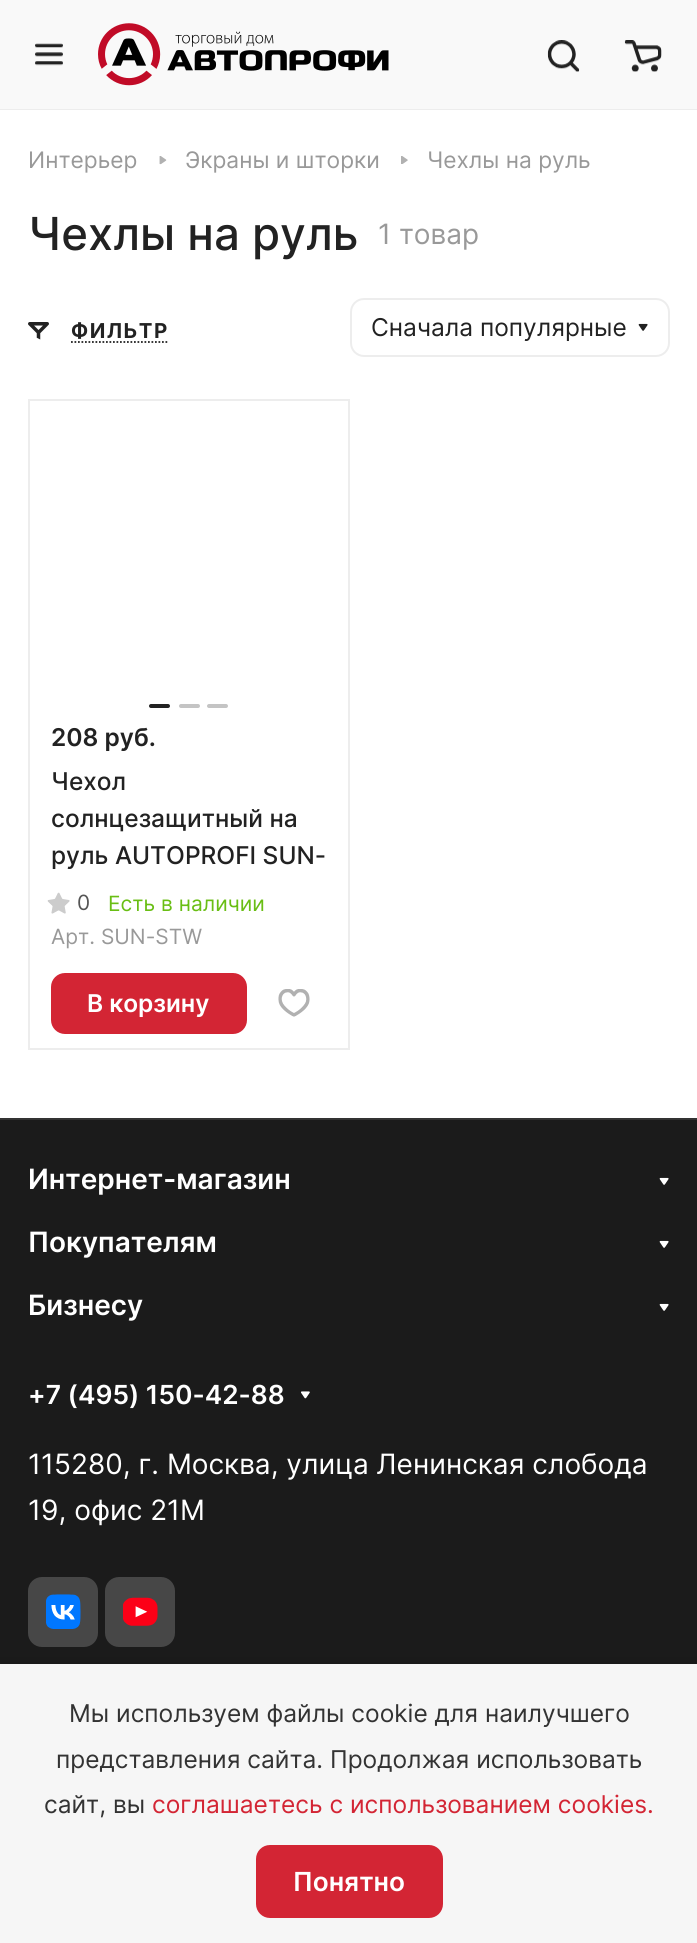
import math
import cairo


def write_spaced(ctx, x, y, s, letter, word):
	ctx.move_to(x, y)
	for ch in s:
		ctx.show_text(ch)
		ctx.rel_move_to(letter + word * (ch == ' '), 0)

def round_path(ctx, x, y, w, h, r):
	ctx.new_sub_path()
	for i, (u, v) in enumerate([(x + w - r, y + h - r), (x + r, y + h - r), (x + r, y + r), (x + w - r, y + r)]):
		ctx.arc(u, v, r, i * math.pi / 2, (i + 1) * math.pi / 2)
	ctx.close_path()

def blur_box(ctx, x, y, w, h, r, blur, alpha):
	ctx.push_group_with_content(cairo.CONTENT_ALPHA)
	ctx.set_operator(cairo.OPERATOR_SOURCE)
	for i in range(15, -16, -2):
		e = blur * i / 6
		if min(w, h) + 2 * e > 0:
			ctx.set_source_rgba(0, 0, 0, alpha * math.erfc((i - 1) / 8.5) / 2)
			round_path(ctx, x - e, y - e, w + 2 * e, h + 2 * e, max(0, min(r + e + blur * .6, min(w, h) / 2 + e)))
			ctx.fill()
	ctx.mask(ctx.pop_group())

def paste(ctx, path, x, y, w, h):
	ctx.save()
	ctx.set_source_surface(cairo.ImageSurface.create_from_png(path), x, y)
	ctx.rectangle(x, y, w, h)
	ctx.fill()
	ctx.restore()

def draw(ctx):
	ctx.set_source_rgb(1, 1, 1)
	ctx.paint()
	ctx.set_source_rgb(0.929, 0.929, 0.929)
	ctx.rectangle(0, 109, 697, 1)
	ctx.fill()
	ctx.set_source_rgb(0.973, 0.973, 0.973)
	ctx.rectangle(0, 0, 697, 109)
	ctx.fill()
	paste(ctx, 'media/1.png', 35, 43, 28, 23)
	paste(ctx, 'media/2.png', 98, 23, 291, 63)
	paste(ctx, 'media/3.png', 547, 40, 33, 32)
	paste(ctx, 'media/4.png', 624, 40, 38, 32)
	ctx.select_font_face('Inter')
	ctx.set_font_size(22.75)
	ctx.set_source_rgb(0.6, 0.6, 0.6)
	ctx.move_to(28, 168)
	ctx.show_text('Интерьер')
	paste(ctx, 'media/5.png', 159, 156, 8, 9)
	ctx.move_to(185, 168)
	ctx.show_text('Экраны и шторки')
	paste(ctx, 'media/6.png', 401, 156, 7, 8)
	ctx.move_to(427, 168)
	ctx.show_text('Чехлы на руль')
	ctx.select_font_face('Inter Medium')
	ctx.set_font_size(45.5)
	ctx.set_source_rgb(0.133, 0.133, 0.133)
	ctx.move_to(28, 250)
	ctx.show_text('Чехлы на руль')
	ctx.select_font_face('Inter')
	ctx.set_font_size(28)
	ctx.set_source_rgb(0.6, 0.6, 0.6)
	ctx.move_to(378, 244)
	ctx.show_text('1 товар')
	paste(ctx, 'media/7.png', 28, 322, 21, 18)
	ctx.select_font_face('Inter', cairo.FONT_SLANT_NORMAL, cairo.FONT_WEIGHT_BOLD)
	ctx.set_font_size(20.5)
	ctx.set_source_rgb(0.133, 0.133, 0.133)
	write_spaced(ctx, 71, 338, 'ФИЛЬТР', 1.5, 0)
	ctx.new_path()
	ctx.move_to(71, 342)
	ctx.line_to(168, 342)
	ctx.set_line_width(1.8)
	ctx.set_dash([1.75, 1.75])
	ctx.stroke()
	round_path(ctx, 351, 299, 318, 57, 13)
	ctx.set_source_rgb(0.929, 0.929, 0.929)
	ctx.set_line_width(2)
	ctx.set_dash([])
	ctx.stroke()
	ctx.select_font_face('Inter')
	ctx.set_font_size(24.5)
	ctx.set_source_rgb(0.133, 0.133, 0.133)
	ctx.move_to(371, 336)
	ctx.show_text('Сначала популярные')
	paste(ctx, 'media/8.png', 638, 323, 10, 8)
	ctx.rectangle(29, 400, 320, 649)
	ctx.set_source_rgb(0.929, 0.929, 0.929)
	ctx.stroke()
	ctx.set_source_rgb(0.133, 0.133, 0.133)
	round_path(ctx, 149, 704, 21, 4, 2)
	ctx.fill()
	ctx.set_source_rgb(0.769, 0.769, 0.769)
	round_path(ctx, 179, 704, 21, 4, 2)
	ctx.fill()
	round_path(ctx, 207, 704, 21, 4, 2)
	ctx.fill()
	ctx.select_font_face('Inter SemiBold')
	ctx.set_source_rgb(0.133, 0.133, 0.133)
	ctx.move_to(51, 746)
	ctx.show_text('208 руб.')
	ctx.select_font_face('Inter Medium')
	for x, y, s in [
		(51, 790, 'Чехол'),
		(51, 827, 'солнцезащитный на'),
		(51, 864, 'руль AUTOPROFI SUN-'),
	]:
		ctx.move_to(x, y)
		ctx.show_text(s)
	paste(ctx, 'media/9.png', 47, 892, 23, 22)
	ctx.select_font_face('Inter')
	ctx.set_font_size(21)
	ctx.set_source_rgb(0.333, 0.333, 0.333)
	ctx.move_to(77, 910)
	ctx.show_text('0')
	ctx.set_source_rgb(0.412, 0.745, 0.082)
	ctx.move_to(108, 911)
	ctx.show_text('Есть в наличии')
	ctx.set_source_rgb(0.6, 0.6, 0.6)
	ctx.move_to(51, 944)
	ctx.show_text('Арт. SUN-STW')
	ctx.set_source_rgb(0.827, 0.145, 0.204)
	round_path(ctx, 52, 974, 194, 59, 13)
	ctx.fill_preserve()
	ctx.stroke()
	ctx.select_font_face('Inter SemiBold')
	ctx.set_font_size(24.5)
	ctx.set_source_rgb(1, 1, 1)
	ctx.move_to(87, 1012)
	ctx.show_text('В корзину')
	paste(ctx, 'media/10.png', 278, 989, 32, 28)
	ctx.set_source_rgb(0.106, 0.106, 0.106)
	ctx.rectangle(0, 1120, 697, 544)
	ctx.fill()
	ctx.set_source_rgb(0.196, 0.196, 0.196)
	ctx.rectangle(0, 1118, 697, 2)
	ctx.fill()
	ctx.set_font_size(28)
	ctx.set_source_rgb(1, 1, 1)
	ctx.move_to(28, 1189)
	ctx.show_text('Интернет-магазин')
	paste(ctx, 'media/11.png', 659, 1177, 10, 8)
	ctx.move_to(28, 1252)
	ctx.show_text('Покупателям')
	paste(ctx, 'media/11.png', 659, 1240, 10, 8)
	ctx.move_to(28, 1315)
	ctx.show_text('Бизнесу')
	paste(ctx, 'media/11.png', 659, 1303, 10, 8)
	ctx.set_font_size(26.25)
	ctx.move_to(28, 1404)
	ctx.show_text('+7 (495) 150-42-88')
	paste(ctx, 'media/12.png', 301, 1391, 9, 8)
	ctx.select_font_face('Inter')
	ctx.set_font_size(28)
	ctx.move_to(28, 1474)
	ctx.show_text('115280, г. Москва, улица Ленинская слобода')
	ctx.move_to(28, 1520)
	ctx.show_text('19, офис 21М')
	ctx.set_source_rgb(0.278, 0.278, 0.278)
	round_path(ctx, 28, 1577, 70, 70, 14)
	ctx.fill()
	paste(ctx, 'media/13.png', 46, 1594, 35, 35)
	round_path(ctx, 105, 1577, 70, 70, 14)
	ctx.fill()
	paste(ctx, 'media/14.png', 123, 1597, 35, 29)
	ctx.set_source_rgb(0, 0, 0)
	blur_box(ctx, 0, 1661, 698, 280, 0, 4.5, 0.1)
	ctx.set_source_rgb(0.961, 0.961, 0.961)
	ctx.rectangle(0, 1664, 697, 279)
	ctx.fill()
	ctx.set_font_size(24.5)
	ctx.set_source_rgb(0.2, 0.2, 0.2)
	for x, y, s in [
		(69, 1722, 'Мы используем файлы cookie для наилучшего'),
		(56, 1768, 'представления сайта. Продолжая использовать'),
		(44, 1813, 'сайт, вы'),
	]:
		ctx.move_to(x, y)
		ctx.show_text(s)
	ctx.set_source_rgb(0.827, 0.145, 0.204)
	ctx.move_to(152, 1813)
	ctx.show_text('соглашаетесь с использованием cookies.')
	round_path(ctx, 257, 1846, 185, 71, 13)
	ctx.fill_preserve()
	ctx.stroke()
	ctx.select_font_face('Inter SemiBold')
	ctx.set_font_size(26.25)
	ctx.set_source_rgb(1, 1, 1)
	ctx.move_to(293, 1891)
	ctx.show_text('Понятно')


surface = cairo.ImageSurface(cairo.FORMAT_RGB24, 697, 1943)
ctx = cairo.Context(surface)
options = cairo.FontOptions()
options.set_hint_metrics(cairo.HINT_METRICS_OFF)
options.set_hint_style(cairo.HINT_STYLE_NONE)
ctx.set_font_options(options)
ctx.set_miter_limit(4)
draw(ctx)
surface.write_to_png('image.png')
